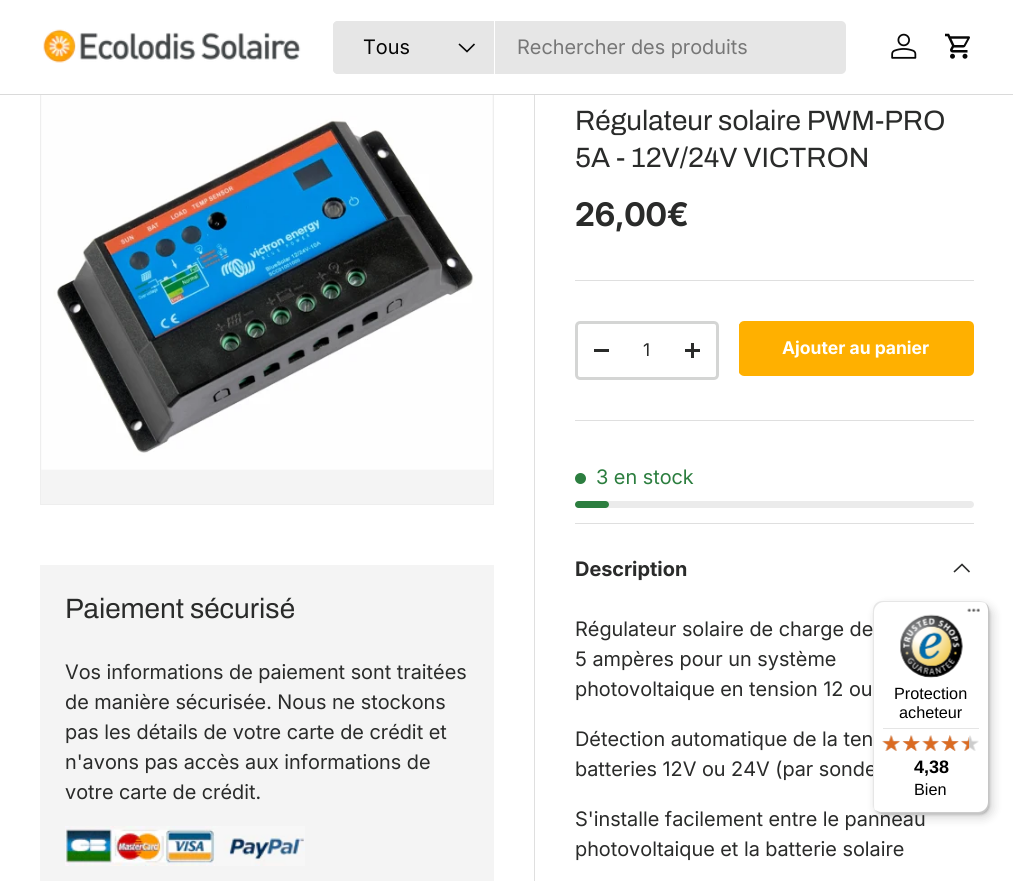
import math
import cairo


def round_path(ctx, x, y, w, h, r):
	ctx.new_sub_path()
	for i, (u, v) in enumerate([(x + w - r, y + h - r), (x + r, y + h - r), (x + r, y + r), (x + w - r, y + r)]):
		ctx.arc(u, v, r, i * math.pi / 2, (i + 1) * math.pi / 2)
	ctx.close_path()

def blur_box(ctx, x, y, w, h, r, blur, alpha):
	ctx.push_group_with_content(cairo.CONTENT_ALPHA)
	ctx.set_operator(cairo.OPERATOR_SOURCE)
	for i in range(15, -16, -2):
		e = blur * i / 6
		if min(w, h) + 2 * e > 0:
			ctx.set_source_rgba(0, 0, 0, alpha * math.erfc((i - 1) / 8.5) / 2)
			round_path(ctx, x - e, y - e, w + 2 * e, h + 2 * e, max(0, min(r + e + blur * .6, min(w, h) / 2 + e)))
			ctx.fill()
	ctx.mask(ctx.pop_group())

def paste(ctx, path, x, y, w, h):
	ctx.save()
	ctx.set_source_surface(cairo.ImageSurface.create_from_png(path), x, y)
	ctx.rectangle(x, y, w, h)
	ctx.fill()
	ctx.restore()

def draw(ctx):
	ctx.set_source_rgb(1, 1, 1)
	ctx.paint()
	ctx.set_source_rgb(0.957, 0.957, 0.957)
	ctx.rectangle(41, 95, 452, 409)
	ctx.fill()
	ctx.rectangle(40.5, 51.5, 453, 453)
	ctx.set_source_rgb(0.933, 0.933, 0.933)
	ctx.set_line_width(1)
	ctx.stroke()
	ctx.set_source_rgb(1, 1, 1)
	ctx.rectangle(40, 51, 454, 43)
	ctx.fill()
	ctx.set_source_rgb(0.855, 0.855, 0.855)
	ctx.rectangle(0, 94, 1013, 1)
	ctx.fill()
	paste(ctx, 'media/1.png', 43, 29, 258, 34)
	ctx.set_source_rgb(0.902, 0.902, 0.902)
	round_path(ctx, 333, 21, 513, 53, 5)
	ctx.fill()
	ctx.new_path()
	ctx.move_to(338, 21)
	ctx.line_to(495, 21)
	ctx.line_to(495, 74)
	ctx.line_to(338, 74)
	ctx.curve_to(335, 74, 333, 72, 333, 69)
	ctx.line_to(333, 26)
	ctx.curve_to(333, 23, 335, 21, 338, 21)
	ctx.close_path()
	ctx.fill()
	ctx.set_source_rgb(1, 1, 1)
	ctx.rectangle(494, 21, 1, 53)
	ctx.fill()
	ctx.select_font_face('Inter')
	ctx.set_font_size(20)
	ctx.set_source_rgb(0.027, 0.027, 0.027)
	ctx.move_to(363, 54)
	ctx.show_text('Tous')
	ctx.new_path()
	ctx.move_to(474.5, 44)
	ctx.line_to(467, 51.5)
	ctx.line_to(459, 44)
	ctx.set_line_width(1.6)
	ctx.stroke()
	ctx.set_source_rgb(0.467, 0.467, 0.467)
	ctx.move_to(517, 54)
	ctx.show_text('Rechercher des produits')
	paste(ctx, 'media/2.png', 891, 33, 26, 26)
	paste(ctx, 'media/3.png', 945, 33, 25, 26)
	ctx.set_source_rgb(0.957, 0.957, 0.957)
	ctx.rectangle(40, 565, 454, 316)
	ctx.fill()
	ctx.select_font_face('Archivo')
	ctx.set_font_size(28)
	ctx.set_source_rgb(0.165, 0.169, 0.165)
	ctx.move_to(65, 618)
	ctx.show_text('Paiement sécurisé')
	ctx.select_font_face('Inter')
	ctx.set_font_size(20)
	for x, y, s in [
		(65, 679, 'Vos informations de paiement sont traitées'),
		(65, 709, 'de manière sécurisée. Nous ne stockons'),
		(65, 739, 'pas les détails de votre carte de crédit et'),
		(65, 769, 'n\'avons pas accès aux informations de'),
		(65, 799, 'votre carte de crédit.'),
	]:
		ctx.move_to(x, y)
		ctx.show_text(s)
	paste(ctx, 'media/4.png', 65, 826, 240, 40)
	paste(ctx, 'media/5.png', 41, 95, 452, 375)
	ctx.set_source_rgb(0.875, 0.875, 0.875)
	ctx.rectangle(534, 95, 1, 786)
	ctx.fill()
	ctx.select_font_face('Archivo')
	ctx.set_font_size(28)
	ctx.set_source_rgb(0.165, 0.169, 0.165)
	ctx.move_to(575, 130)
	ctx.show_text('Régulateur solaire PWM-PRO')
	ctx.move_to(575, 167)
	ctx.show_text('5A - 12V/24V VICTRON')
	ctx.select_font_face('Inter', cairo.FONT_SLANT_NORMAL, cairo.FONT_WEIGHT_BOLD)
	ctx.set_font_size(32.5)
	ctx.move_to(575, 226)
	ctx.show_text('26,00€')
	ctx.set_source_rgb(0.875, 0.875, 0.875)
	ctx.rectangle(575, 280, 399, 1)
	ctx.fill()
	round_path(ctx, 576.5, 322.5, 141, 56, 3.5)
	ctx.set_source_rgb(0.831, 0.835, 0.831)
	ctx.set_line_width(3)
	ctx.stroke()
	ctx.set_source_rgb(0.165, 0.169, 0.165)
	ctx.rectangle(594, 349, 15, 3)
	ctx.fill()
	ctx.select_font_face('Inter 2')
	ctx.set_font_size(17.5)
	ctx.move_to(643, 356)
	ctx.show_text('1')
	ctx.rectangle(685, 349, 15, 3)
	ctx.fill()
	ctx.rectangle(691, 343, 3, 15)
	ctx.fill()
	ctx.save()
	round_path(ctx, 739, 321, 235, 55, 5)
	ctx.clip()
	gradient = cairo.LinearGradient(296, 266, 957, 431)
	gradient.add_color_stop_rgba(0.6, 1, 0.757, 0.208, 1)
	gradient.add_color_stop_rgba(0.6, 1, 0.69, 0, 1)
	gradient.add_color_stop_rgba(1, 1, 0.69, 0, 1)
	ctx.set_source(gradient)
	ctx.rectangle(739, 324, 232, 50)
	ctx.fill()
	ctx.restore()
	round_path(ctx, 740.5, 322.5, 232, 52, 3.5)
	ctx.set_source_rgb(1, 0.69, 0)
	ctx.stroke()
	ctx.select_font_face('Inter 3', cairo.FONT_SLANT_NORMAL, cairo.FONT_WEIGHT_BOLD)
	ctx.set_source_rgb(1, 1, 1)
	ctx.move_to(782, 354)
	ctx.show_text('Ajouter au panier')
	ctx.set_source_rgb(0.875, 0.875, 0.875)
	ctx.rectangle(575, 420, 399, 1)
	ctx.fill()
	ctx.set_source_rgb(0.173, 0.494, 0.247)
	ctx.arc(580.5, 478.5, 5.5, 0, 2 * math.pi)
	ctx.fill()
	ctx.select_font_face('Inter')
	ctx.set_font_size(20)
	ctx.move_to(596, 484)
	ctx.show_text('3 en stock')
	ctx.set_source_rgb(0.918, 0.918, 0.918)
	round_path(ctx, 575, 501, 399, 7, 3.5)
	ctx.fill()
	ctx.set_source_rgb(0.173, 0.494, 0.247)
	round_path(ctx, 575, 501, 34, 7, 3.5)
	ctx.fill()
	ctx.set_source_rgb(0.875, 0.875, 0.875)
	ctx.rectangle(575, 523, 399, 1)
	ctx.fill()
	ctx.select_font_face('Inter 2', cairo.FONT_SLANT_NORMAL, cairo.FONT_WEIGHT_BOLD)
	ctx.set_source_rgb(0.165, 0.169, 0.165)
	ctx.move_to(575, 576)
	ctx.show_text('Description')
	ctx.new_path()
	ctx.move_to(969.5, 572)
	ctx.line_to(962, 564.5)
	ctx.line_to(954, 572)
	ctx.set_line_width(1.6)
	ctx.stroke()
	ctx.select_font_face('Inter')
	for x, y, s in [
		(575, 636, 'Régulateur solaire de charge de'),
		(575, 666, '5 ampères pour un système'),
		(575, 696, 'photovoltaique en tension 12 ou'),
		(575, 746, 'Détection automatique de la ten'),
		(575, 776, 'batteries 12V ou 24V (par sonde'),
		(575, 826, 'S\'installe facilement entre le panneau'),
		(575, 856, 'photovoltaique et la batterie solaire'),
	]:
		ctx.move_to(x, y)
		ctx.show_text(s)
	ctx.set_source_rgb(0, 0, 0)
	blur_box(ctx, 876, 605, 117, 213, 10, 5, 0.15)
	blur_box(ctx, 874, 603, 116, 212, 10, 1, 0.15)
	ctx.set_source_rgb(1, 1, 1)
	round_path(ctx, 873, 601, 116, 213, 10)
	ctx.fill()
	ctx.set_source_rgba(0, 0, 0, 0.1)
	ctx.new_path()
	ctx.move_to(884, 602)
	ctx.line_to(980, 602)
	ctx.curve_to(983, 602, 985, 603, 987, 604)
	ctx.curve_to(985, 602, 982, 601, 979, 601)
	ctx.line_to(883, 601)
	ctx.curve_to(877, 601, 873, 605, 873, 611)
	ctx.line_to(873, 804)
	ctx.curve_to(873, 806, 874, 809, 875, 810)
	ctx.curve_to(874, 809, 874, 807, 874, 805)
	ctx.line_to(874, 612)
	ctx.curve_to(874, 607, 878, 602, 884, 602)
	ctx.close_path()
	ctx.fill()
	ctx.set_source_rgba(0, 0, 0, 0.2)
	ctx.new_path()
	ctx.move_to(875, 810)
	ctx.curve_to(877, 812, 880, 814, 883, 814)
	ctx.line_to(979, 814)
	ctx.curve_to(985, 814, 989, 810, 989, 804)
	ctx.line_to(989, 611)
	ctx.curve_to(989, 608, 988, 605, 986, 603)
	ctx.curve_to(987, 605, 988, 607, 988, 610)
	ctx.line_to(988, 802)
	ctx.curve_to(988, 808, 983, 812, 978, 812)
	ctx.line_to(881, 812)
	ctx.curve_to(879, 812, 877, 811, 875, 810)
	ctx.close_path()
	ctx.fill()
	ctx.set_source_rgba(0.196, 0.196, 0.196, 0.2)
	ctx.new_path()
	ctx.move_to(877, 812)
	ctx.curve_to(878, 813, 881, 814, 883, 814)
	ctx.line_to(979, 814)
	ctx.curve_to(985, 814, 989, 810, 989, 804)
	ctx.line_to(989, 611)
	ctx.curve_to(989, 608, 988, 605, 985, 603)
	ctx.curve_to(987, 605, 988, 608, 988, 610)
	ctx.line_to(988, 803)
	ctx.curve_to(988, 809, 984, 813, 978, 813)
	ctx.line_to(882, 813)
	ctx.curve_to(880, 813, 878, 813, 877, 812)
	ctx.close_path()
	ctx.fill()
	ctx.set_source_rgba(1, 1, 1, 0.3)
	ctx.new_path()
	ctx.move_to(877, 812)
	ctx.curve_to(878, 813, 881, 814, 883, 814)
	ctx.line_to(979, 814)
	ctx.curve_to(985, 814, 989, 810, 989, 804)
	ctx.line_to(989, 611)
	ctx.curve_to(989, 605, 985, 601, 979, 601)
	ctx.line_to(978, 601)
	ctx.curve_to(984, 601, 988, 605, 988, 611)
	ctx.line_to(988, 803)
	ctx.curve_to(988, 809, 984, 813, 978, 813)
	ctx.line_to(882, 813)
	ctx.curve_to(880, 813, 878, 813, 877, 812)
	ctx.close_path()
	ctx.fill()
	paste(ctx, 'media/6.png', 967, 608, 13, 4)
	paste(ctx, 'media/7.png', 900, 614, 63, 64)
	ctx.select_font_face('Liberation Sans')
	ctx.set_font_size(16.25)
	ctx.set_source_rgb(0, 0, 0)
	ctx.move_to(894, 699)
	ctx.show_text('Protection')
	ctx.move_to(899, 718)
	ctx.show_text('acheteur')
	ctx.set_source_rgb(0.898, 0.898, 0.898)
	ctx.rectangle(883, 728, 96, 1)
	ctx.fill()
	paste(ctx, 'media/8.png', 882, 735, 18, 16)
	paste(ctx, 'media/9.png', 903, 735, 17, 16)
	paste(ctx, 'media/10.png', 922, 735, 17, 16)
	paste(ctx, 'media/11.png', 941, 735, 18, 16)
	paste(ctx, 'media/12.png', 961, 735, 18, 16)
	paste(ctx, 'media/13.png', 882, 735, 18, 16)
	paste(ctx, 'media/14.png', 902, 735, 19, 16)
	paste(ctx, 'media/15.png', 922, 735, 17, 16)
	paste(ctx, 'media/16.png', 941, 735, 18, 16)
	paste(ctx, 'media/17.png', 961, 737, 8, 14)
	ctx.select_font_face('Liberation Sans', cairo.FONT_SLANT_NORMAL, cairo.FONT_WEIGHT_BOLD)
	ctx.set_font_size(18)
	ctx.set_source_rgb(0, 0, 0)
	ctx.move_to(914, 773)
	ctx.show_text('4,38')
	ctx.select_font_face('Liberation Sans')
	ctx.set_font_size(16.25)
	ctx.move_to(914, 795)
	ctx.show_text('Bien')


surface = cairo.ImageSurface(cairo.FORMAT_RGB24, 1013, 881)
ctx = cairo.Context(surface)
options = cairo.FontOptions()
options.set_hint_metrics(cairo.HINT_METRICS_OFF)
options.set_hint_style(cairo.HINT_STYLE_NONE)
ctx.set_font_options(options)
ctx.set_miter_limit(4)
draw(ctx)
surface.write_to_png('image.png')
